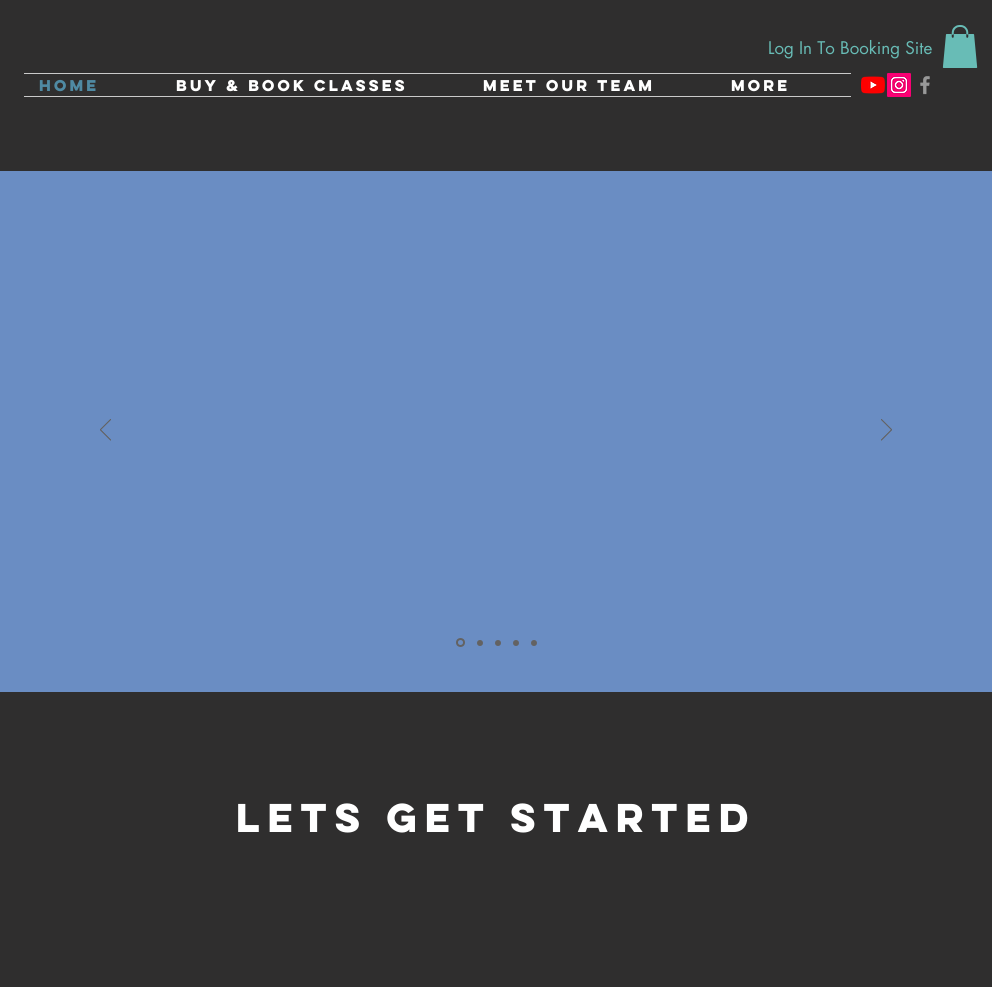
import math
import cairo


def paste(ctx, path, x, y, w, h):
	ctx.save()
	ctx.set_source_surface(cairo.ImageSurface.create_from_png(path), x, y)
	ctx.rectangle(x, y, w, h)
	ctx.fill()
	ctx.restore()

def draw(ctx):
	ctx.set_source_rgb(0.184, 0.18, 0.18)
	ctx.paint()
	ctx.select_font_face('futura')
	ctx.set_font_size(17)
	ctx.set_source_rgb(0.408, 0.737, 0.714)
	ctx.move_to(768, 54)
	ctx.show_text('Log In To Booking Site')
	paste(ctx, 'media/1.png', 942, 25, 36, 43)
	ctx.set_source_rgb(0.792, 0.792, 0.792)
	ctx.rectangle(24, 73, 827, 1)
	ctx.fill()
	ctx.rectangle(24, 96, 827, 1)
	ctx.fill()
	ctx.select_font_face('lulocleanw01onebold', cairo.FONT_SLANT_NORMAL, cairo.FONT_WEIGHT_BOLD)
	ctx.set_font_size(14)
	ctx.set_source_rgb(0.31, 0.541, 0.639)
	ctx.move_to(39, 91)
	ctx.show_text('Home')
	ctx.set_source_rgb(1, 1, 1)
	for x, y, s in [
		(176, 91, 'Buy & Book Classes'),
		(483, 91, 'Meet our team'),
		(731, 91, 'More'),
	]:
		ctx.move_to(x, y)
		ctx.show_text(s)
	paste(ctx, 'media/2.png', 861, 76, 24, 18)
	paste(ctx, 'media/3.png', 887, 73, 24, 24)
	paste(ctx, 'media/4.png', 920, 76, 10, 19)
	ctx.set_source_rgb(0.416, 0.553, 0.765)
	ctx.rectangle(0, 171, 992, 521)
	ctx.fill()
	paste(ctx, 'media/5.png', 100, 419, 11, 22)
	paste(ctx, 'media/6.png', 881, 419, 11, 22)
	ctx.arc(460.5, 642.5, 3.5, 0, 2 * math.pi)
	ctx.set_source_rgb(0.388, 0.384, 0.384)
	ctx.stroke()
	ctx.arc(480, 643, 3, 0, 2 * math.pi)
	ctx.fill()
	ctx.arc(498, 643, 3, 0, 2 * math.pi)
	ctx.fill()
	ctx.arc(516, 643, 3, 0, 2 * math.pi)
	ctx.fill()
	ctx.arc(534, 643, 3, 0, 2 * math.pi)
	ctx.fill()
	ctx.set_font_size(36)
	ctx.set_source_rgb(1, 1, 1)
	ctx.move_to(236, 832)
	ctx.show_text('Lets get started')


surface = cairo.ImageSurface(cairo.FORMAT_RGB24, 992, 987)
ctx = cairo.Context(surface)
options = cairo.FontOptions()
options.set_hint_metrics(cairo.HINT_METRICS_OFF)
options.set_hint_style(cairo.HINT_STYLE_NONE)
ctx.set_font_options(options)
ctx.set_miter_limit(4)
draw(ctx)
surface.write_to_png('image.png')
